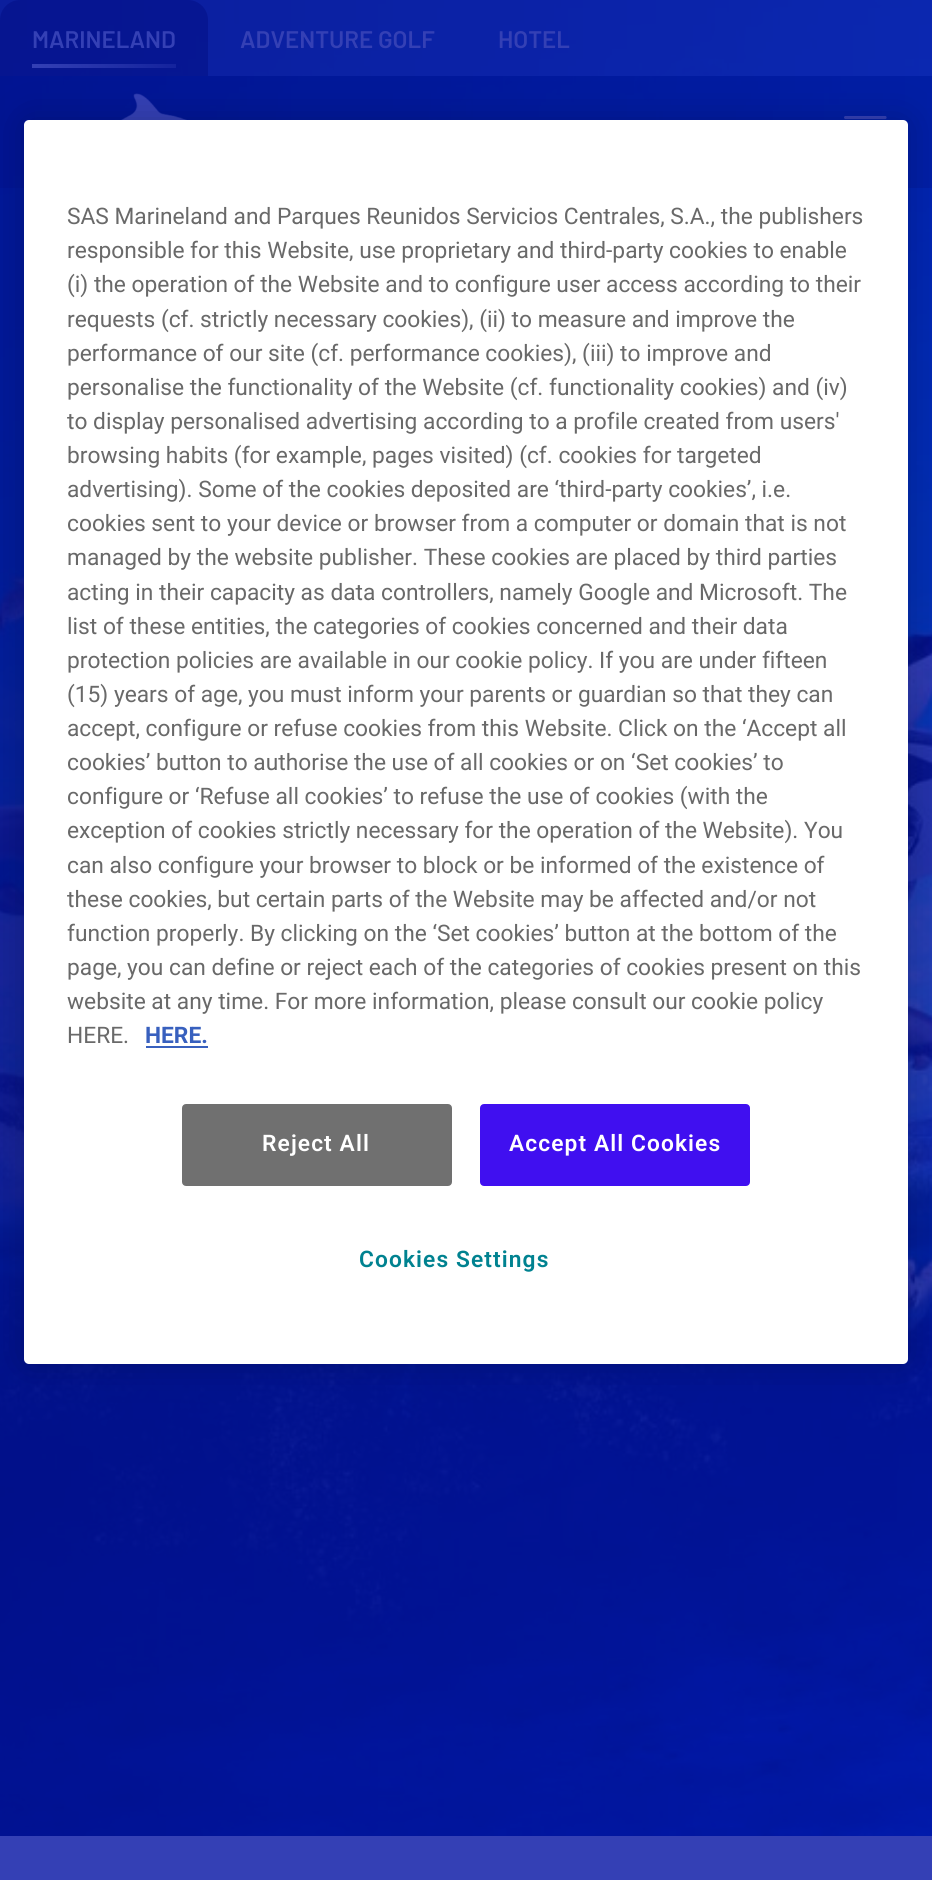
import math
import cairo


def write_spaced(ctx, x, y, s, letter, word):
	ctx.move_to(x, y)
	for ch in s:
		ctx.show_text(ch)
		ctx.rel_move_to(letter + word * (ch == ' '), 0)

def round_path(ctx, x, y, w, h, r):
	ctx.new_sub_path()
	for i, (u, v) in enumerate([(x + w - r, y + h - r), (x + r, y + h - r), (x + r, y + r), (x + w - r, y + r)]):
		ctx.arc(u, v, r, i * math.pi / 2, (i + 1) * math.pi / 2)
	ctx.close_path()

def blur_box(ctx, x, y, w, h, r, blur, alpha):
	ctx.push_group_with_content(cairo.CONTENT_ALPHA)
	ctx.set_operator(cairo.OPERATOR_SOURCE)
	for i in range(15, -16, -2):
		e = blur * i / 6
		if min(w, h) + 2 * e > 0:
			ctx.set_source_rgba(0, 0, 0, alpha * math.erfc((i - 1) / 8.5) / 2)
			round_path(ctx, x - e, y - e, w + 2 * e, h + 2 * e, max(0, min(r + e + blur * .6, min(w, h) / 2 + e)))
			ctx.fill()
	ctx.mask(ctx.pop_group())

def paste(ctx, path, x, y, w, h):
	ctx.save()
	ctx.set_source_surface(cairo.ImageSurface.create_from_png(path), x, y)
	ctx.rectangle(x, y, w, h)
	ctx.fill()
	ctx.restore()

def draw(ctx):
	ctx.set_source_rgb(0.204, 0.251, 0.71)
	ctx.paint()
	paste(ctx, 'media/1.png', 0, 0, 932, 1836)
	ctx.set_source_rgba(0.204, 0.251, 0.71, 0.2)
	ctx.rectangle(0, 0, 932, 76)
	ctx.fill()
	ctx.set_source_rgba(0.004, 0.051, 0.51, 0.45)
	ctx.new_path()
	ctx.move_to(20, 0)
	ctx.line_to(188, 0)
	ctx.curve_to(199, 0, 208, 9, 208, 20)
	ctx.line_to(208, 76)
	ctx.line_to(0, 76)
	ctx.line_to(0, 20)
	ctx.curve_to(0, 9, 9, 0, 20, 0)
	ctx.close_path()
	ctx.fill()
	ctx.select_font_face('Barlow SemiBold')
	ctx.set_font_size(24)
	ctx.set_source_rgb(0.204, 0.251, 0.71)
	ctx.move_to(32, 48)
	ctx.show_text('MARINELAND')
	gradient = cairo.LinearGradient(49, 98, 159, 34)
	gradient.add_color_stop_rgba(0, 0.204, 0.251, 0.71, 1)
	gradient.add_color_stop_rgba(1, 0.204, 0.251, 0.71, 0.3)
	ctx.set_source(gradient)
	ctx.rectangle(32, 64, 144, 4)
	ctx.fill()
	ctx.set_source_rgb(0.204, 0.251, 0.71)
	ctx.move_to(240, 48)
	ctx.show_text('ADVENTURE GOLF')
	ctx.move_to(498, 48)
	ctx.show_text('HOTEL')
	ctx.set_source_rgba(0.004, 0.051, 0.51, 0.24)
	ctx.rectangle(0, 76, 932, 112)
	ctx.fill()
	paste(ctx, 'media/2.png', 121, 93, 66, 27)
	paste(ctx, 'media/3.png', 844, 116, 43, 4)
	ctx.set_source_rgb(0, 0, 0)
	blur_box(ctx, 24, 120, 884, 1244, 5, 18, 0.2)
	ctx.set_source_rgb(1, 1, 1)
	round_path(ctx, 24, 120, 884, 1244, 5)
	ctx.fill()
	ctx.select_font_face('Roboto')
	ctx.set_font_size(22.75)
	ctx.set_source_rgb(0.412, 0.412, 0.412)
	for x, y, s in [
		(67, 224, 'SAS Marineland and Parques Reunidos Servicios Centrales, S.A., the publishers'),
		(67, 258, 'responsible for this Website, use proprietary and third-party cookies to enable'),
		(67, 292, '(i) the operation of the Website and to configure user access according to their'),
		(67, 327, 'requests (cf. strictly necessary cookies), (ii) to measure and improve the'),
		(67, 361, 'performance of our site (cf. performance cookies), (iii) to improve and'),
		(67, 395, 'personalise the functionality of the Website (cf. functionality cookies) and (iv)'),
		(67, 429, 'to display personalised advertising according to a profile created from users\''),
		(67, 463, 'browsing habits (for example, pages visited) (cf. cookies for targeted'),
		(67, 497, 'advertising). Some of the cookies deposited are ‘third-party cookies’, i.e.'),
		(67, 531, 'cookies sent to your device or browser from a computer or domain that is not'),
		(67, 565, 'managed by the website publisher. These cookies are placed by third parties'),
		(67, 600, 'acting in their capacity as data controllers, namely Google and Microsoft. The'),
		(67, 634, 'list of these entities, the categories of cookies concerned and their data'),
		(67, 668, 'protection policies are available in our cookie policy. If you are under fifteen'),
		(67, 702, '(15) years of age, you must inform your parents or guardian so that they can'),
		(67, 736, 'accept, configure or refuse cookies from this Website. Click on the ‘Accept all'),
		(67, 770, 'cookies’ button to authorise the use of all cookies or on ‘Set cookies’ to'),
		(67, 804, 'configure or ‘Refuse all cookies’ to refuse the use of cookies (with the'),
		(67, 838, 'exception of cookies strictly necessary for the operation of the Website). You'),
		(67, 873, 'can also configure your browser to block or be informed of the existence of'),
		(67, 907, 'these cookies, but certain parts of the Website may be affected and/or not'),
		(67, 941, 'function properly. By clicking on the ‘Set cookies’ button at the bottom of the'),
		(67, 975, 'page, you can define or reject each of the categories of cookies present on this'),
		(67, 1009, 'website at any time. For more information, please consult our cookie policy'),
		(67, 1043, 'HERE.'),
	]:
		ctx.move_to(x, y)
		ctx.show_text(s)
	ctx.select_font_face('Roboto', cairo.FONT_SLANT_NORMAL, cairo.FONT_WEIGHT_BOLD)
	ctx.set_source_rgb(0.22, 0.376, 0.745)
	ctx.move_to(145, 1043)
	ctx.show_text('HERE.')
	ctx.rectangle(146, 1046, 62, 2)
	ctx.fill()
	ctx.set_source_rgb(0.439, 0.439, 0.439)
	round_path(ctx, 183, 1105, 268, 80, 3)
	ctx.fill_preserve()
	ctx.stroke()
	ctx.select_font_face('Roboto SemiBold')
	ctx.set_source_rgb(1, 1, 1)
	write_spaced(ctx, 262, 1151, 'Reject All', 1.1, 0)
	ctx.set_source_rgb(0.251, 0.059, 0.941)
	round_path(ctx, 481, 1105, 268, 80, 3)
	ctx.fill_preserve()
	ctx.stroke()
	ctx.set_source_rgb(1, 1, 1)
	write_spaced(ctx, 509, 1151, 'Accept All Cookies', 1.1, 0)
	ctx.set_source_rgb(0, 0.51, 0.565)
	write_spaced(ctx, 359, 1267, 'Cookies Settings', 1.1, 0)


surface = cairo.ImageSurface(cairo.FORMAT_RGB24, 932, 1880)
ctx = cairo.Context(surface)
options = cairo.FontOptions()
options.set_hint_metrics(cairo.HINT_METRICS_OFF)
options.set_hint_style(cairo.HINT_STYLE_NONE)
ctx.set_font_options(options)
ctx.set_miter_limit(4)
draw(ctx)
surface.write_to_png('image.png')
